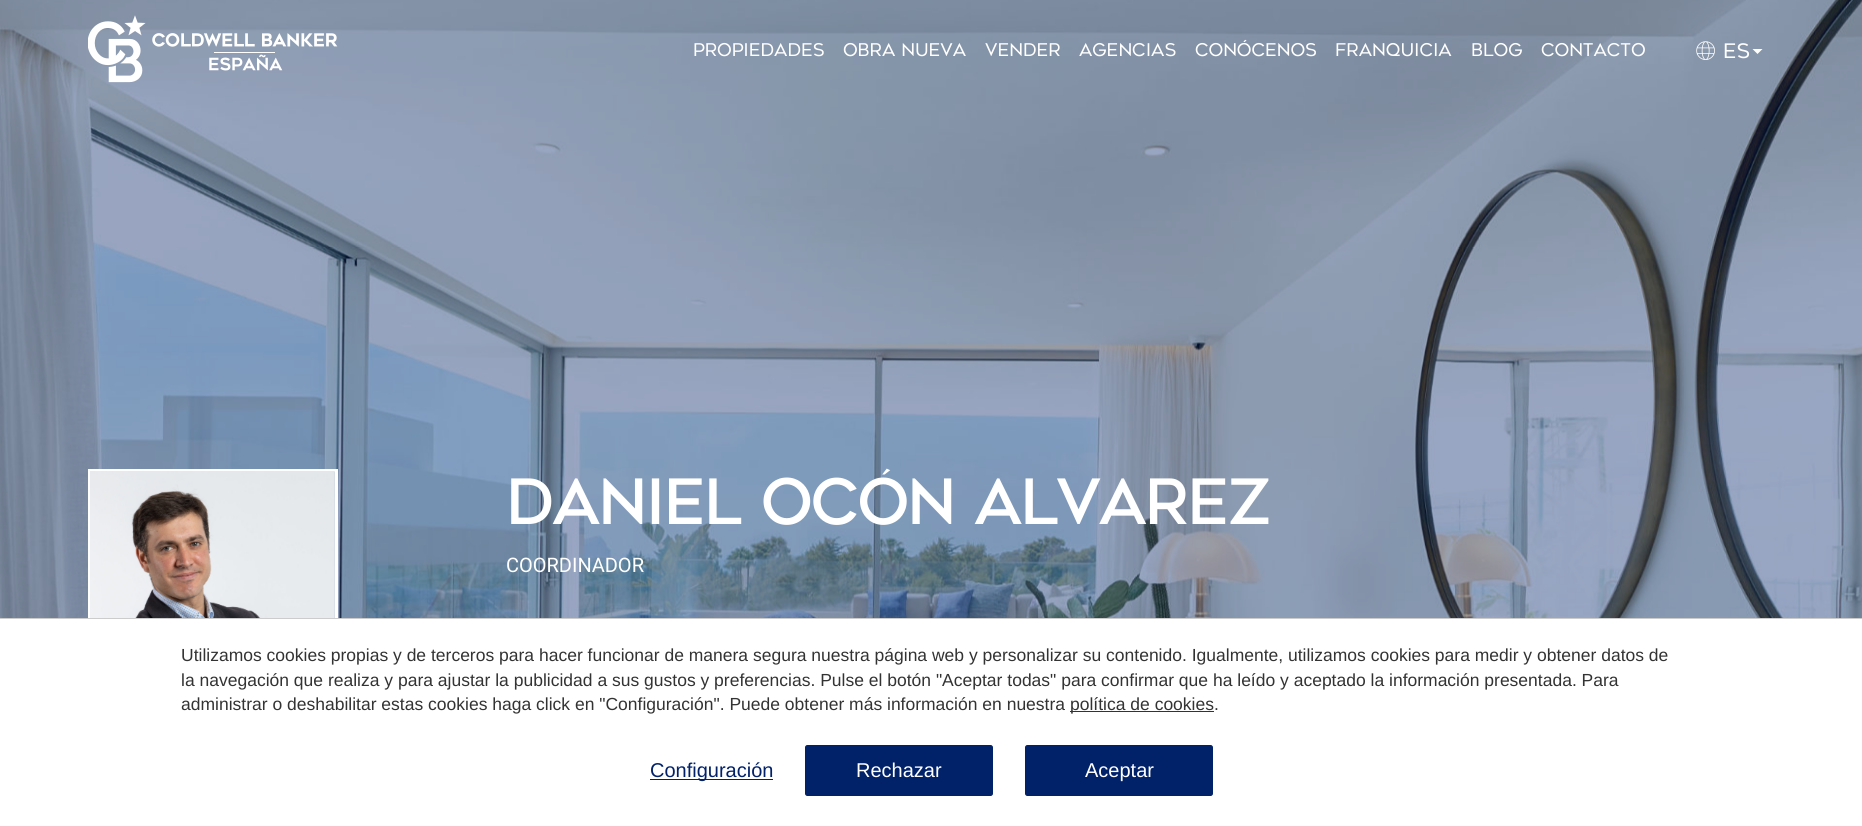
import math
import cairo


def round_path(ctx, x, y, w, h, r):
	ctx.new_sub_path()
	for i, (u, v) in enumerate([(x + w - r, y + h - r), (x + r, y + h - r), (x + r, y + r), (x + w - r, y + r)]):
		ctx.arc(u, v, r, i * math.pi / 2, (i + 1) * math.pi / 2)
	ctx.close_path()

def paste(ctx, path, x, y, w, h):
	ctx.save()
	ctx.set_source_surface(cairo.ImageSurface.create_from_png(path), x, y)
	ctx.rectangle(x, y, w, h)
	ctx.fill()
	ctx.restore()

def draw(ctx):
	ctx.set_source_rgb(1, 1, 1)
	ctx.paint()
	paste(ctx, 'media/3.png', 0, 0, 1862, 618)
	paste(ctx, 'media/1.png', 88, 15, 250, 68)
	ctx.select_font_face('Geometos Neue')
	ctx.set_font_size(17.5)
	ctx.set_source_rgb(1, 1, 1)
	for x, y, s in [
		(693, 56, 'Propiedades'),
		(843, 56, 'Obra nueva'),
		(985, 56, 'Vender'),
		(1079, 56, 'Agencias'),
		(1195, 56, 'Conócenos'),
		(1335, 56, 'Franquicia'),
		(1471, 56, 'Blog'),
		(1541, 56, 'Contacto'),
	]:
		ctx.move_to(x, y)
		ctx.show_text(s)
	paste(ctx, 'media/2.png', 1696, 41, 19, 19)
	ctx.set_font_size(20)
	ctx.move_to(1723, 58)
	ctx.show_text('ES')
	ctx.new_path()
	ctx.move_to(1752.5, 49)
	ctx.line_to(1762.5, 49)
	ctx.line_to(1757.5, 54)
	ctx.close_path()
	ctx.fill()
	ctx.rectangle(89.5, 470.5, 247, 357)
	ctx.set_line_width(3)
	ctx.stroke()
	paste(ctx, 'media/4.png', 90, 471, 245, 147)
	ctx.select_font_face('Geometos Neue', cairo.FONT_SLANT_NORMAL, cairo.FONT_WEIGHT_BOLD)
	ctx.set_font_size(60)
	ctx.move_to(506, 524)
	ctx.show_text('Daniel Ocón Alvarez')
	ctx.select_font_face('Roboto')
	ctx.set_font_size(20)
	ctx.move_to(506, 572)
	ctx.show_text('COORDINADOR')
	ctx.set_source_rgb(0.8, 0.8, 0.8)
	ctx.rectangle(0, 618, 1862, 1)
	ctx.fill()
	ctx.select_font_face('Liberation Sans')
	ctx.set_font_size(17.5)
	ctx.set_source_rgb(0.2, 0.2, 0.2)
	for x, y, s in [
		(181, 661, 'Utilizamos cookies propias y de terceros para hacer funcionar de manera segura nuestra página web y personalizar su contenido. Igualmente, utilizamos cookies para medir y obtener datos de'),
		(181, 686, 'la navegación que realiza y para ajustar la publicidad a sus gustos y preferencias. Pulse el botón "Aceptar todas" para confirmar que ha leído y aceptado la información presentada. Para'),
		(181, 710, 'administrar o deshabilitar estas cookies haga click en "Configuración". Puede obtener más información en nuestra'),
	]:
		ctx.move_to(x, y)
		ctx.show_text(s)
	ctx.rectangle(1070, 711, 144, 1)
	ctx.fill()
	ctx.move_to(1070, 710)
	ctx.show_text('política de cookies.')
	ctx.set_source_rgb(0.004, 0.129, 0.412)
	ctx.rectangle(650, 779, 123, 1)
	ctx.fill()
	ctx.set_font_size(20)
	ctx.move_to(650, 777)
	ctx.show_text('Configuración')
	round_path(ctx, 805.5, 745.5, 187, 50, 2)
	ctx.fill_preserve()
	ctx.set_line_width(1)
	ctx.stroke()
	ctx.set_source_rgb(1, 1, 1)
	ctx.move_to(856, 777)
	ctx.show_text('Rechazar')
	ctx.set_source_rgb(0.004, 0.129, 0.412)
	round_path(ctx, 1025.5, 745.5, 187, 50, 2)
	ctx.fill_preserve()
	ctx.stroke()
	ctx.set_source_rgb(1, 1, 1)
	ctx.move_to(1085, 777)
	ctx.show_text('Aceptar')


surface = cairo.ImageSurface(cairo.FORMAT_RGB24, 1862, 826)
ctx = cairo.Context(surface)
options = cairo.FontOptions()
options.set_hint_metrics(cairo.HINT_METRICS_OFF)
options.set_hint_style(cairo.HINT_STYLE_NONE)
ctx.set_font_options(options)
ctx.set_miter_limit(4)
draw(ctx)
surface.write_to_png('image.png')
